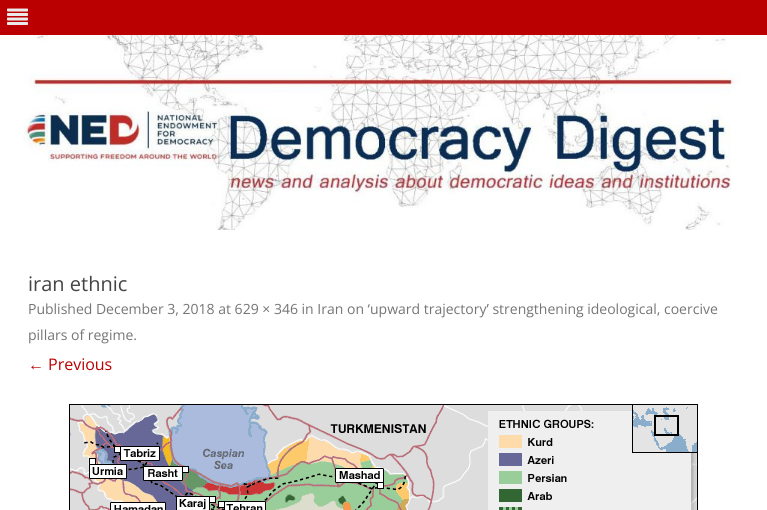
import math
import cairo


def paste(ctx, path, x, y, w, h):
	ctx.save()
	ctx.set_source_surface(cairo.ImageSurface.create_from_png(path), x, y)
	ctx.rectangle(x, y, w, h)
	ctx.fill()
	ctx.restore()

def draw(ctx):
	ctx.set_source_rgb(1, 1, 1)
	ctx.paint()
	ctx.set_source_rgb(0.729, 0, 0)
	ctx.rectangle(0, 0, 767, 35)
	ctx.fill()
	paste(ctx, 'media/1.png', 7, 8, 21, 17)
	paste(ctx, 'media/2.png', 23, 35, 717, 195)
	ctx.select_font_face('Open Sans')
	ctx.set_font_size(20)
	ctx.set_source_rgb(0.267, 0.267, 0.267)
	ctx.move_to(28, 291)
	ctx.show_text('iran ethnic')
	ctx.set_font_size(14)
	ctx.set_source_rgb(0.459, 0.459, 0.459)
	ctx.move_to(28, 314)
	ctx.show_text('Published December 3, 2018 at 629 × 346 in Iran on ‘upward trajectory’ strengthening ideological, coercive')
	ctx.move_to(28, 340)
	ctx.show_text('pillars of regime.')
	ctx.select_font_face('Liberation Sans')
	ctx.set_font_size(16)
	ctx.set_source_rgb(0.729, 0, 0)
	ctx.move_to(28, 370)
	ctx.show_text('←')
	ctx.select_font_face('Open Sans')
	ctx.move_to(48, 370)
	ctx.show_text('Previous')
	paste(ctx, 'media/3.png', 69, 404, 629, 106)


surface = cairo.ImageSurface(cairo.FORMAT_RGB24, 767, 510)
ctx = cairo.Context(surface)
options = cairo.FontOptions()
options.set_hint_metrics(cairo.HINT_METRICS_OFF)
options.set_hint_style(cairo.HINT_STYLE_NONE)
ctx.set_font_options(options)
ctx.set_miter_limit(4)
draw(ctx)
surface.write_to_png('image.png')
